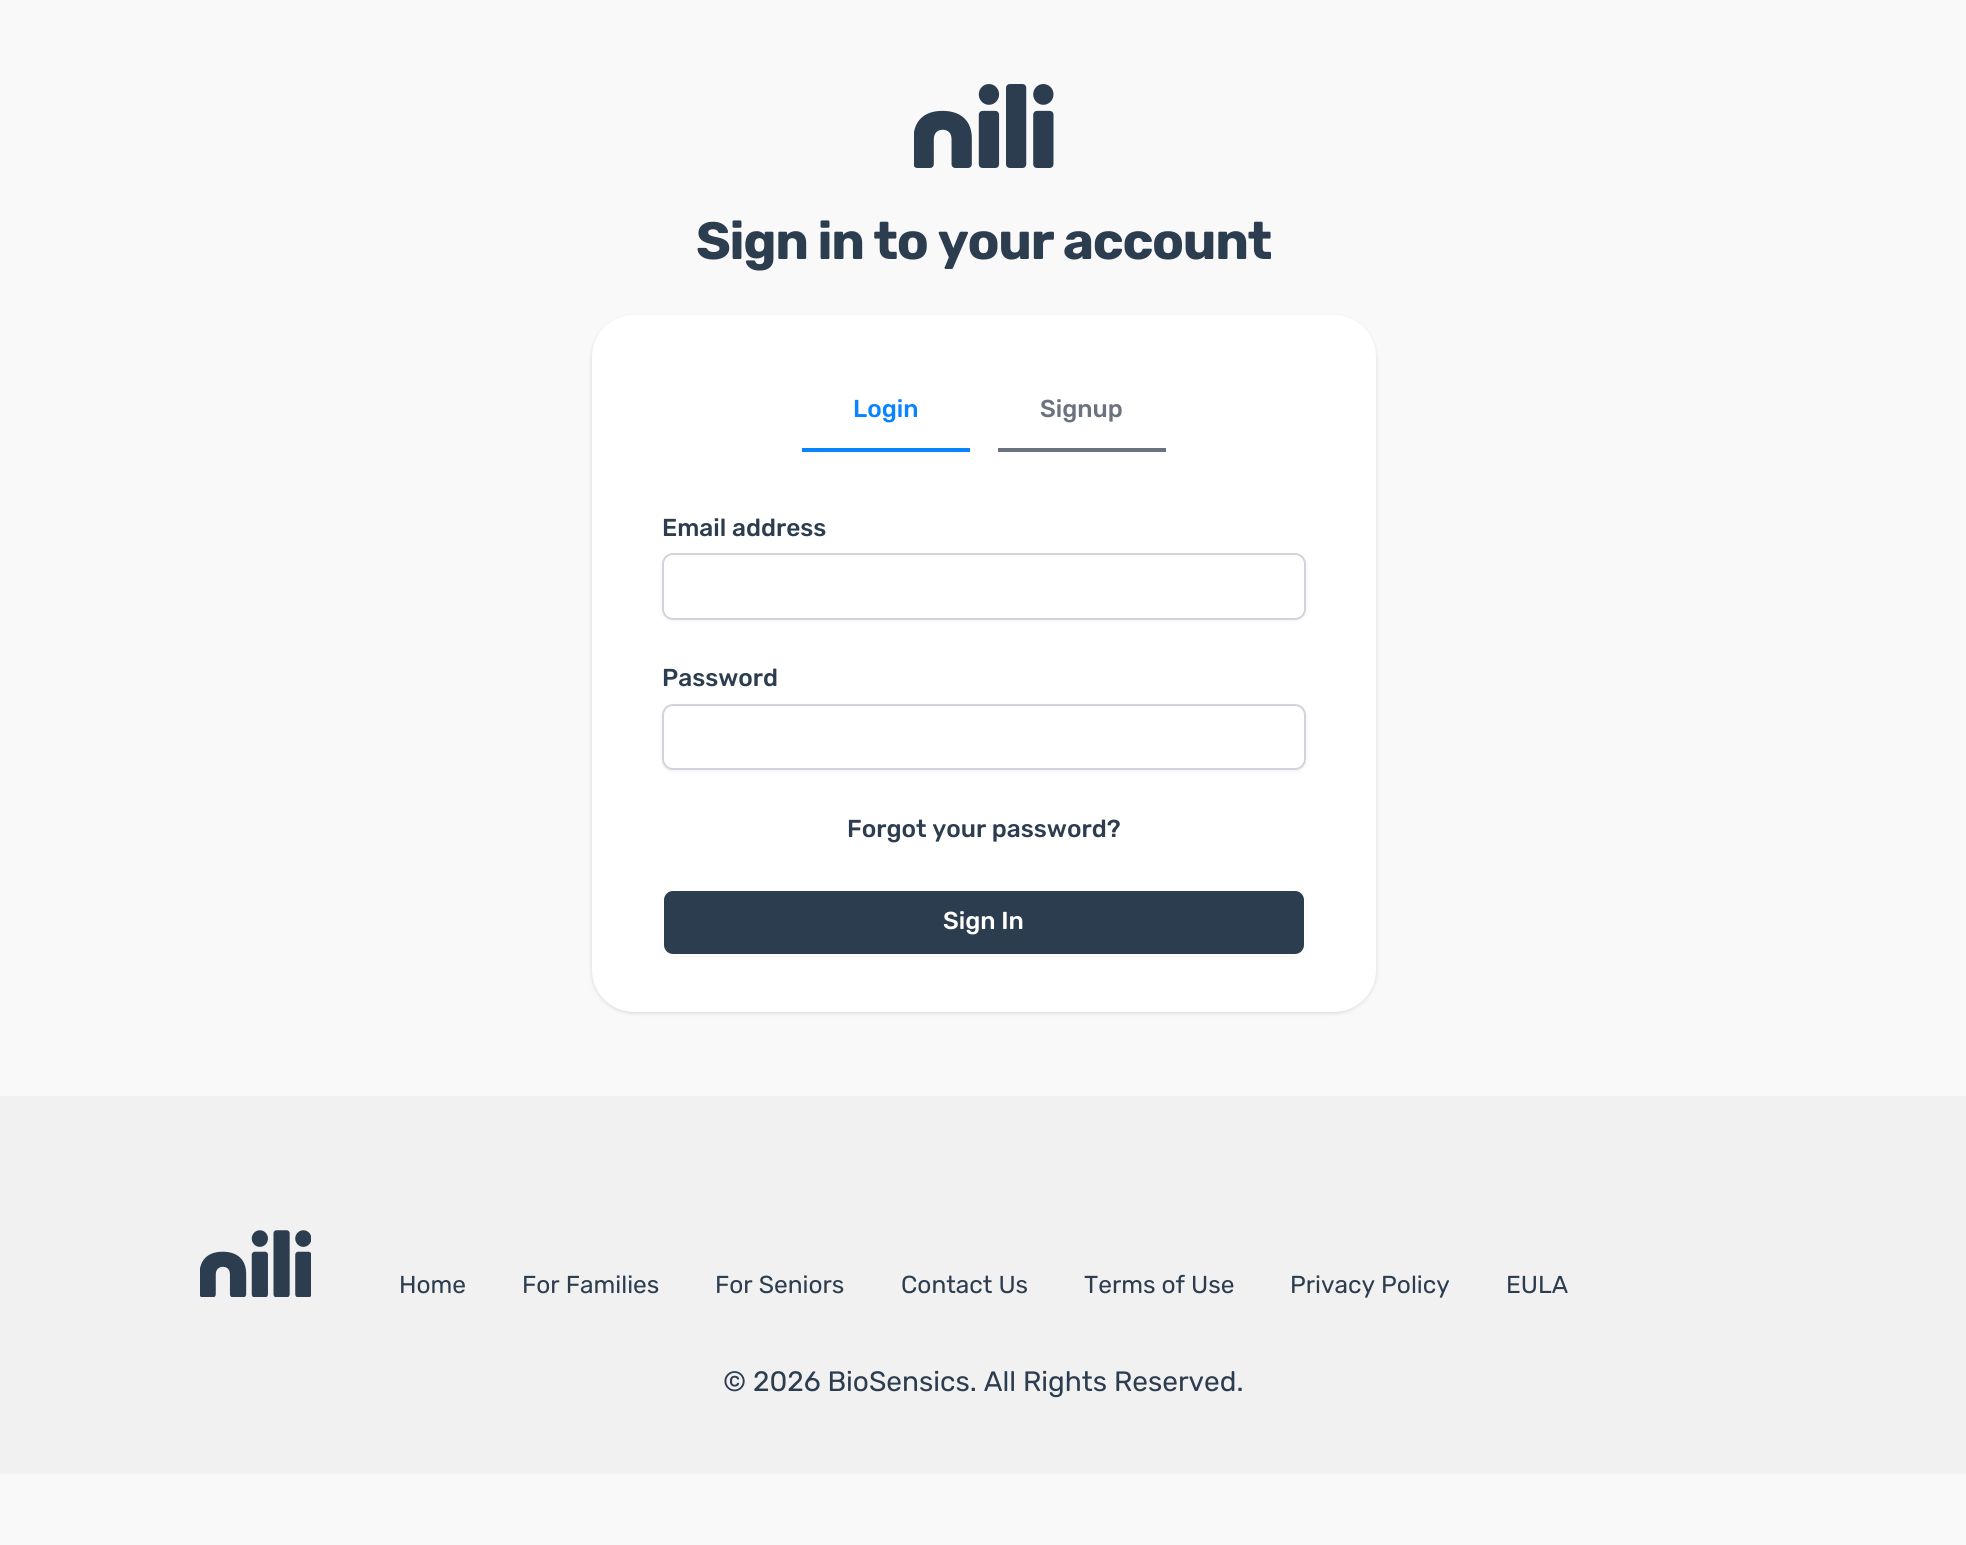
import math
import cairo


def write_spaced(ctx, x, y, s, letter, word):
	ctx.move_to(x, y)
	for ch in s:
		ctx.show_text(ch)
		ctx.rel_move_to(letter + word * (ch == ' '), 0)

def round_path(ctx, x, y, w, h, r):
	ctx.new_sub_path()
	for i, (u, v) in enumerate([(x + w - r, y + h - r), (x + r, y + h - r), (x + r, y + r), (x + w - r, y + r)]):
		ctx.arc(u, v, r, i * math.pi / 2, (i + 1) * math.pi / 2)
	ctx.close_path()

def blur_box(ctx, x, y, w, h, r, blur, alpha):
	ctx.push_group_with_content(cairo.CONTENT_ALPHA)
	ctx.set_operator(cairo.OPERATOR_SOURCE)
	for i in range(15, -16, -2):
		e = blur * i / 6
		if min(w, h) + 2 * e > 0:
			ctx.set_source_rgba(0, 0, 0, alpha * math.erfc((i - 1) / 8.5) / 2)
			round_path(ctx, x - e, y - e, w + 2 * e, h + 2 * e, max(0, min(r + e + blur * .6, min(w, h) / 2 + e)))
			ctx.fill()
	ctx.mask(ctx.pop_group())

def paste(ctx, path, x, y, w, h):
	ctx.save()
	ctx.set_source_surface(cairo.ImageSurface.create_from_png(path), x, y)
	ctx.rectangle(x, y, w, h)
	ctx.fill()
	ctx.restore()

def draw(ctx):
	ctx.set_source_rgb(0.976, 0.976, 0.976)
	ctx.paint()
	paste(ctx, 'media/1.png', 914, 84, 140, 84)
	ctx.select_font_face('Rubik', cairo.FONT_SLANT_NORMAL, cairo.FONT_WEIGHT_BOLD)
	ctx.set_font_size(52.5)
	ctx.set_source_rgb(0.176, 0.239, 0.314)
	write_spaced(ctx, 696, 259, 'Sign in to your account', -1.3, 0)
	ctx.set_source_rgb(0, 0, 0)
	blur_box(ctx, 593, 319, 781, 693, 40, 2, 0.1)
	blur_box(ctx, 592, 317, 784, 696, 42, 2.5, 0.1)
	ctx.set_source_rgb(1, 1, 1)
	round_path(ctx, 592, 315, 784, 697, 42)
	ctx.fill()
	ctx.set_source_rgb(0.039, 0.518, 1)
	ctx.rectangle(802, 448, 168, 4)
	ctx.fill()
	ctx.select_font_face('Rubik Medium')
	ctx.set_font_size(24.5)
	ctx.move_to(853, 417)
	ctx.show_text('Login')
	ctx.set_source_rgb(0.42, 0.447, 0.502)
	ctx.rectangle(998, 448, 168, 4)
	ctx.fill()
	ctx.move_to(1040, 417)
	ctx.show_text('Signup')
	ctx.set_source_rgb(0.176, 0.239, 0.314)
	ctx.move_to(662, 536)
	ctx.show_text('Email address')
	ctx.set_source_rgb(0, 0, 0)
	blur_box(ctx, 662, 555, 644, 66, 11, 2, 0.05)
	ctx.set_source_rgb(1, 1, 1)
	round_path(ctx, 663, 554, 642, 65, 10)
	ctx.fill_preserve()
	ctx.set_source_rgb(0.82, 0.835, 0.859)
	ctx.stroke()
	ctx.set_source_rgb(0.176, 0.239, 0.314)
	ctx.move_to(662, 686)
	ctx.show_text('Password')
	ctx.set_source_rgb(0, 0, 0)
	blur_box(ctx, 662, 705, 644, 67, 11, 2, 0.05)
	ctx.set_source_rgb(1, 1, 1)
	round_path(ctx, 663, 705, 642, 64, 10)
	ctx.fill_preserve()
	ctx.set_source_rgb(0.82, 0.835, 0.859)
	ctx.stroke()
	ctx.set_source_rgb(0.176, 0.239, 0.314)
	ctx.move_to(847, 837)
	ctx.show_text('Forgot your password?')
	ctx.set_source_rgb(0, 0, 0)
	blur_box(ctx, 662, 891, 644, 66, 11, 2, 0.05)
	ctx.set_source_rgb(0.176, 0.239, 0.314)
	round_path(ctx, 663, 890, 642, 65, 10)
	ctx.fill_preserve()
	ctx.set_source_rgb(1, 1, 1)
	ctx.stroke()
	ctx.move_to(943, 929)
	ctx.show_text('Sign In')
	ctx.set_source_rgb(0.945, 0.945, 0.945)
	ctx.rectangle(0, 1096, 1966, 378)
	ctx.fill()
	paste(ctx, 'media/2.png', 200, 1230, 111, 67)
	ctx.select_font_face('Rubik')
	ctx.set_source_rgb(0.176, 0.239, 0.314)
	for x, y, s in [
		(399, 1293, 'Home'),
		(522, 1293, 'For Families'),
		(715, 1293, 'For Seniors'),
		(901, 1293, 'Contact Us'),
		(1084, 1293, 'Terms of Use'),
		(1290, 1293, 'Privacy Policy'),
		(1506, 1293, 'EULA'),
	]:
		ctx.move_to(x, y)
		ctx.show_text(s)
	ctx.set_font_size(28)
	ctx.move_to(723, 1391)
	ctx.show_text('© 2026 BioSensics. All Rights Reserved.')


surface = cairo.ImageSurface(cairo.FORMAT_RGB24, 1966, 1545)
ctx = cairo.Context(surface)
options = cairo.FontOptions()
options.set_hint_metrics(cairo.HINT_METRICS_OFF)
options.set_hint_style(cairo.HINT_STYLE_NONE)
ctx.set_font_options(options)
ctx.set_miter_limit(4)
draw(ctx)
surface.write_to_png('image.png')
